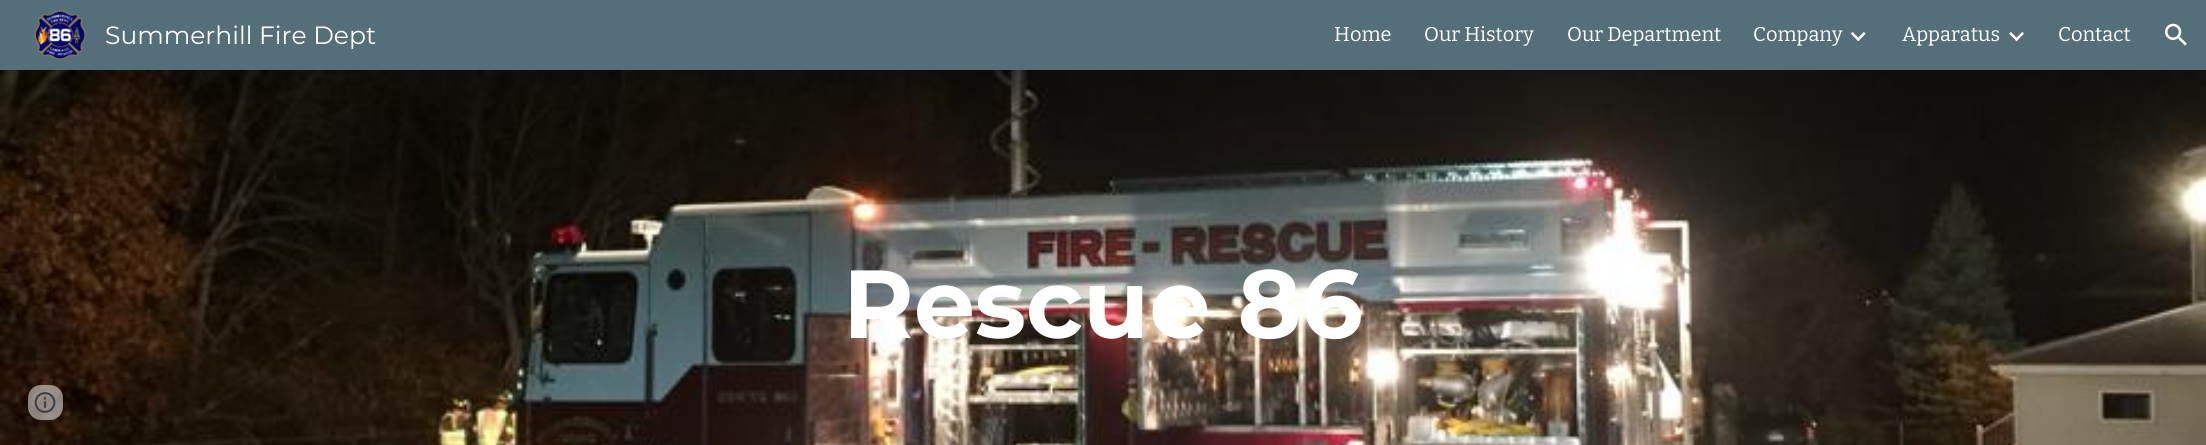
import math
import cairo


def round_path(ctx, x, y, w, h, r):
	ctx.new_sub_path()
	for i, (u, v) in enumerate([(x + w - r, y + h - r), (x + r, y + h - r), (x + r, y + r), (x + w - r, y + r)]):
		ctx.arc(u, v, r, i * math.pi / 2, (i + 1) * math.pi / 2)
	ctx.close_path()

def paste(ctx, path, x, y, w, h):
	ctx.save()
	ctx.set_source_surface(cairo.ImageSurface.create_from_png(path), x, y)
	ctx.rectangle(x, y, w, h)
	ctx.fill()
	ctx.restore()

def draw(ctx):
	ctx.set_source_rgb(1, 1, 1)
	ctx.paint()
	ctx.set_source_rgb(0.329, 0.431, 0.478)
	ctx.rectangle(0, 0, 2206, 70)
	ctx.fill()
	paste(ctx, 'media/1.png', 34, 10, 52, 50)
	ctx.select_font_face('Montserrat')
	ctx.set_font_size(25)
	ctx.set_source_rgb(1, 1, 1)
	ctx.move_to(105, 44)
	ctx.show_text('Summerhill Fire Dept')
	ctx.select_font_face('Bitter')
	ctx.set_font_size(20)
	for x, y, s in [
		(1334, 41, 'Home'),
		(1424, 41, 'Our History'),
		(1567, 41, 'Our Department'),
		(1753, 41, 'Company'),
	]:
		ctx.move_to(x, y)
		ctx.show_text(s)
	paste(ctx, 'media/2.png', 1850, 32, 16, 10)
	ctx.move_to(1902, 41)
	ctx.show_text('Apparatus')
	paste(ctx, 'media/3.png', 2009, 32, 15, 10)
	ctx.move_to(2058, 41)
	ctx.show_text('Contact')
	paste(ctx, 'media/4.png', 2165, 23, 22, 23)
	paste(ctx, 'media/5.png', 0, 70, 2206, 375)
	ctx.select_font_face('Montserrat', cairo.FONT_SLANT_NORMAL, cairo.FONT_WEIGHT_BOLD)
	ctx.set_font_size(96.5)
	ctx.move_to(843, 338)
	ctx.show_text('Rescue 86')
	ctx.set_source_rgba(1, 1, 1, 0.5)
	round_path(ctx, 28, 385, 35, 35, 13)
	ctx.fill()
	paste(ctx, 'media/6.png', 34, 392, 22, 21)


surface = cairo.ImageSurface(cairo.FORMAT_RGB24, 2206, 445)
ctx = cairo.Context(surface)
options = cairo.FontOptions()
options.set_hint_metrics(cairo.HINT_METRICS_OFF)
options.set_hint_style(cairo.HINT_STYLE_NONE)
ctx.set_font_options(options)
ctx.set_miter_limit(4)
draw(ctx)
surface.write_to_png('image.png')
